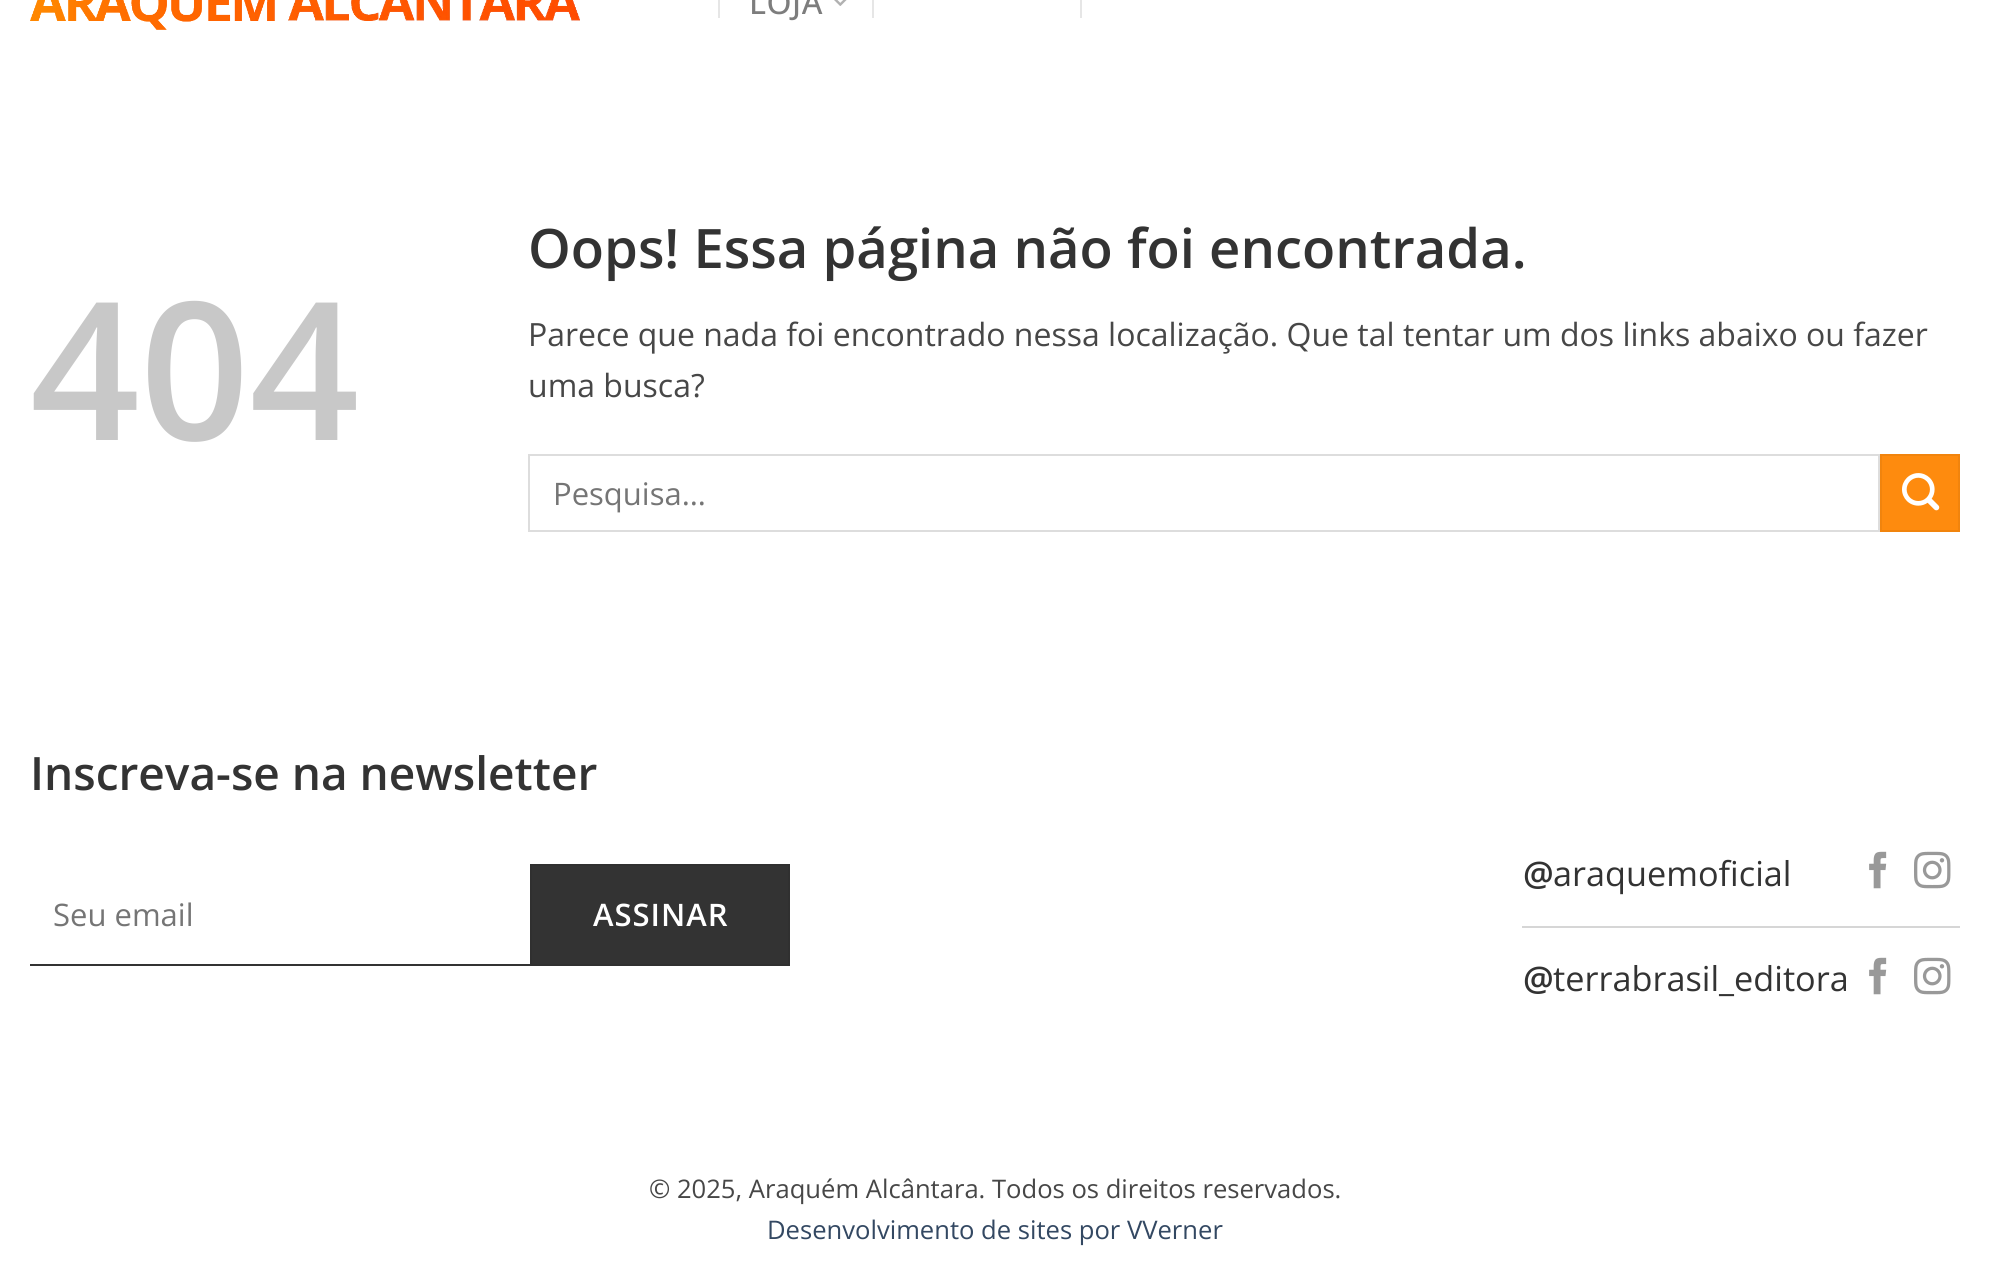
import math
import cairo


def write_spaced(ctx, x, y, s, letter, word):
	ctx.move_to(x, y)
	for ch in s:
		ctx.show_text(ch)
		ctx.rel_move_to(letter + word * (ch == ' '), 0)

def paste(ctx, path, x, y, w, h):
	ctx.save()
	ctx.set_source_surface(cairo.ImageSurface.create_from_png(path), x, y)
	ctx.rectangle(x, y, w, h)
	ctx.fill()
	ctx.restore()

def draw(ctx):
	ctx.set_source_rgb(1, 1, 1)
	ctx.paint()
	paste(ctx, 'media/1.png', 30, 0, 550, 30)
	ctx.set_source_rgb(0.902, 0.902, 0.902)
	ctx.rectangle(718, 0, 2, 18)
	ctx.fill()
	ctx.select_font_face('Open Sans Medium')
	ctx.set_font_size(32)
	ctx.set_source_rgb(0.49, 0.49, 0.49)
	write_spaced(ctx, 749, 14, 'LOJA', 0.5, 0)
	paste(ctx, 'media/2.png', 834, 0, 13, 6)
	ctx.set_source_rgb(0.902, 0.902, 0.902)
	ctx.rectangle(872, 0, 2, 18)
	ctx.fill()
	ctx.rectangle(1080, 0, 2, 18)
	ctx.fill()
	ctx.select_font_face('Open Sans SemiBold')
	ctx.set_font_size(192)
	ctx.set_source_rgb(0.784, 0.784, 0.784)
	ctx.move_to(30, 440)
	ctx.show_text('404')
	ctx.set_font_size(54.4)
	ctx.set_source_rgb(0.2, 0.2, 0.2)
	ctx.move_to(528, 268)
	ctx.show_text('Oops! Essa página não foi encontrada.')
	ctx.select_font_face('Open Sans')
	ctx.set_font_size(32)
	ctx.set_source_rgb(0.278, 0.278, 0.278)
	ctx.move_to(528, 346)
	ctx.show_text('Parece que nada foi encontrado nessa localização. Que tal tentar um dos links abaixo ou fazer')
	ctx.move_to(528, 397)
	ctx.show_text('uma busca?')
	ctx.rectangle(529, 455, 1350, 76)
	ctx.set_source_rgb(0.867, 0.867, 0.867)
	ctx.stroke()
	ctx.set_font_size(31)
	ctx.set_source_rgb(0.459, 0.459, 0.459)
	ctx.move_to(553, 505)
	ctx.show_text('Pesquisa…')
	ctx.set_source_rgb(0.996, 0.545, 0.055)
	ctx.rectangle(1881, 455, 78, 76)
	ctx.fill_preserve()
	ctx.set_source_rgb(0.945, 0.518, 0.051)
	ctx.stroke()
	paste(ctx, 'media/3.png', 1902, 473, 38, 38)
	ctx.select_font_face('Open Sans SemiBold')
	ctx.set_font_size(46)
	ctx.set_source_rgb(0.2, 0.2, 0.2)
	ctx.move_to(30, 790)
	ctx.show_text('Inscreva-se na newsletter')
	ctx.rectangle(30, 964, 500, 2)
	ctx.fill()
	ctx.select_font_face('Open Sans')
	ctx.set_font_size(31)
	ctx.set_source_rgb(0.459, 0.459, 0.459)
	ctx.move_to(53, 926)
	ctx.show_text('Seu email')
	ctx.set_source_rgb(0.2, 0.2, 0.2)
	ctx.rectangle(531, 865, 258, 100)
	ctx.fill_preserve()
	ctx.set_source_rgb(0.188, 0.188, 0.188)
	ctx.stroke()
	ctx.select_font_face('Open Sans SemiBold')
	ctx.set_source_rgb(1, 1, 1)
	write_spaced(ctx, 593, 926, 'ASSINAR', 1, 0)
	ctx.set_font_size(34.25)
	ctx.set_source_rgb(0.2, 0.2, 0.2)
	ctx.move_to(1523, 886)
	ctx.show_text('@')
	ctx.select_font_face('Open Sans')
	ctx.move_to(1553, 886)
	ctx.show_text('araquemoficial')
	paste(ctx, 'media/4.png', 1869, 851, 18, 38)
	paste(ctx, 'media/5.png', 1914, 851, 37, 38)
	ctx.set_source_rgb(0.839, 0.839, 0.839)
	ctx.rectangle(1522, 926, 438, 2)
	ctx.fill()
	ctx.select_font_face('Open Sans SemiBold')
	ctx.set_source_rgb(0.2, 0.2, 0.2)
	ctx.move_to(1523, 991)
	ctx.show_text('@')
	ctx.select_font_face('Open Sans')
	ctx.move_to(1553, 991)
	ctx.show_text('terrabrasil_editora')
	paste(ctx, 'media/4.png', 1869, 957, 18, 38)
	paste(ctx, 'media/5.png', 1914, 957, 37, 38)
	ctx.set_font_size(25.6)
	ctx.set_source_rgb(0.278, 0.278, 0.278)
	ctx.move_to(649, 1198)
	ctx.show_text('© 2025, Araquém Alcântara. Todos os direitos reservados.')
	ctx.set_source_rgb(0.2, 0.282, 0.384)
	ctx.move_to(767, 1239)
	ctx.show_text('Desenvolvimento de sites por VVerner')


surface = cairo.ImageSurface(cairo.FORMAT_RGB24, 1990, 1281)
ctx = cairo.Context(surface)
options = cairo.FontOptions()
options.set_hint_metrics(cairo.HINT_METRICS_OFF)
options.set_hint_style(cairo.HINT_STYLE_NONE)
ctx.set_font_options(options)
ctx.set_miter_limit(4)
draw(ctx)
surface.write_to_png('image.png')
